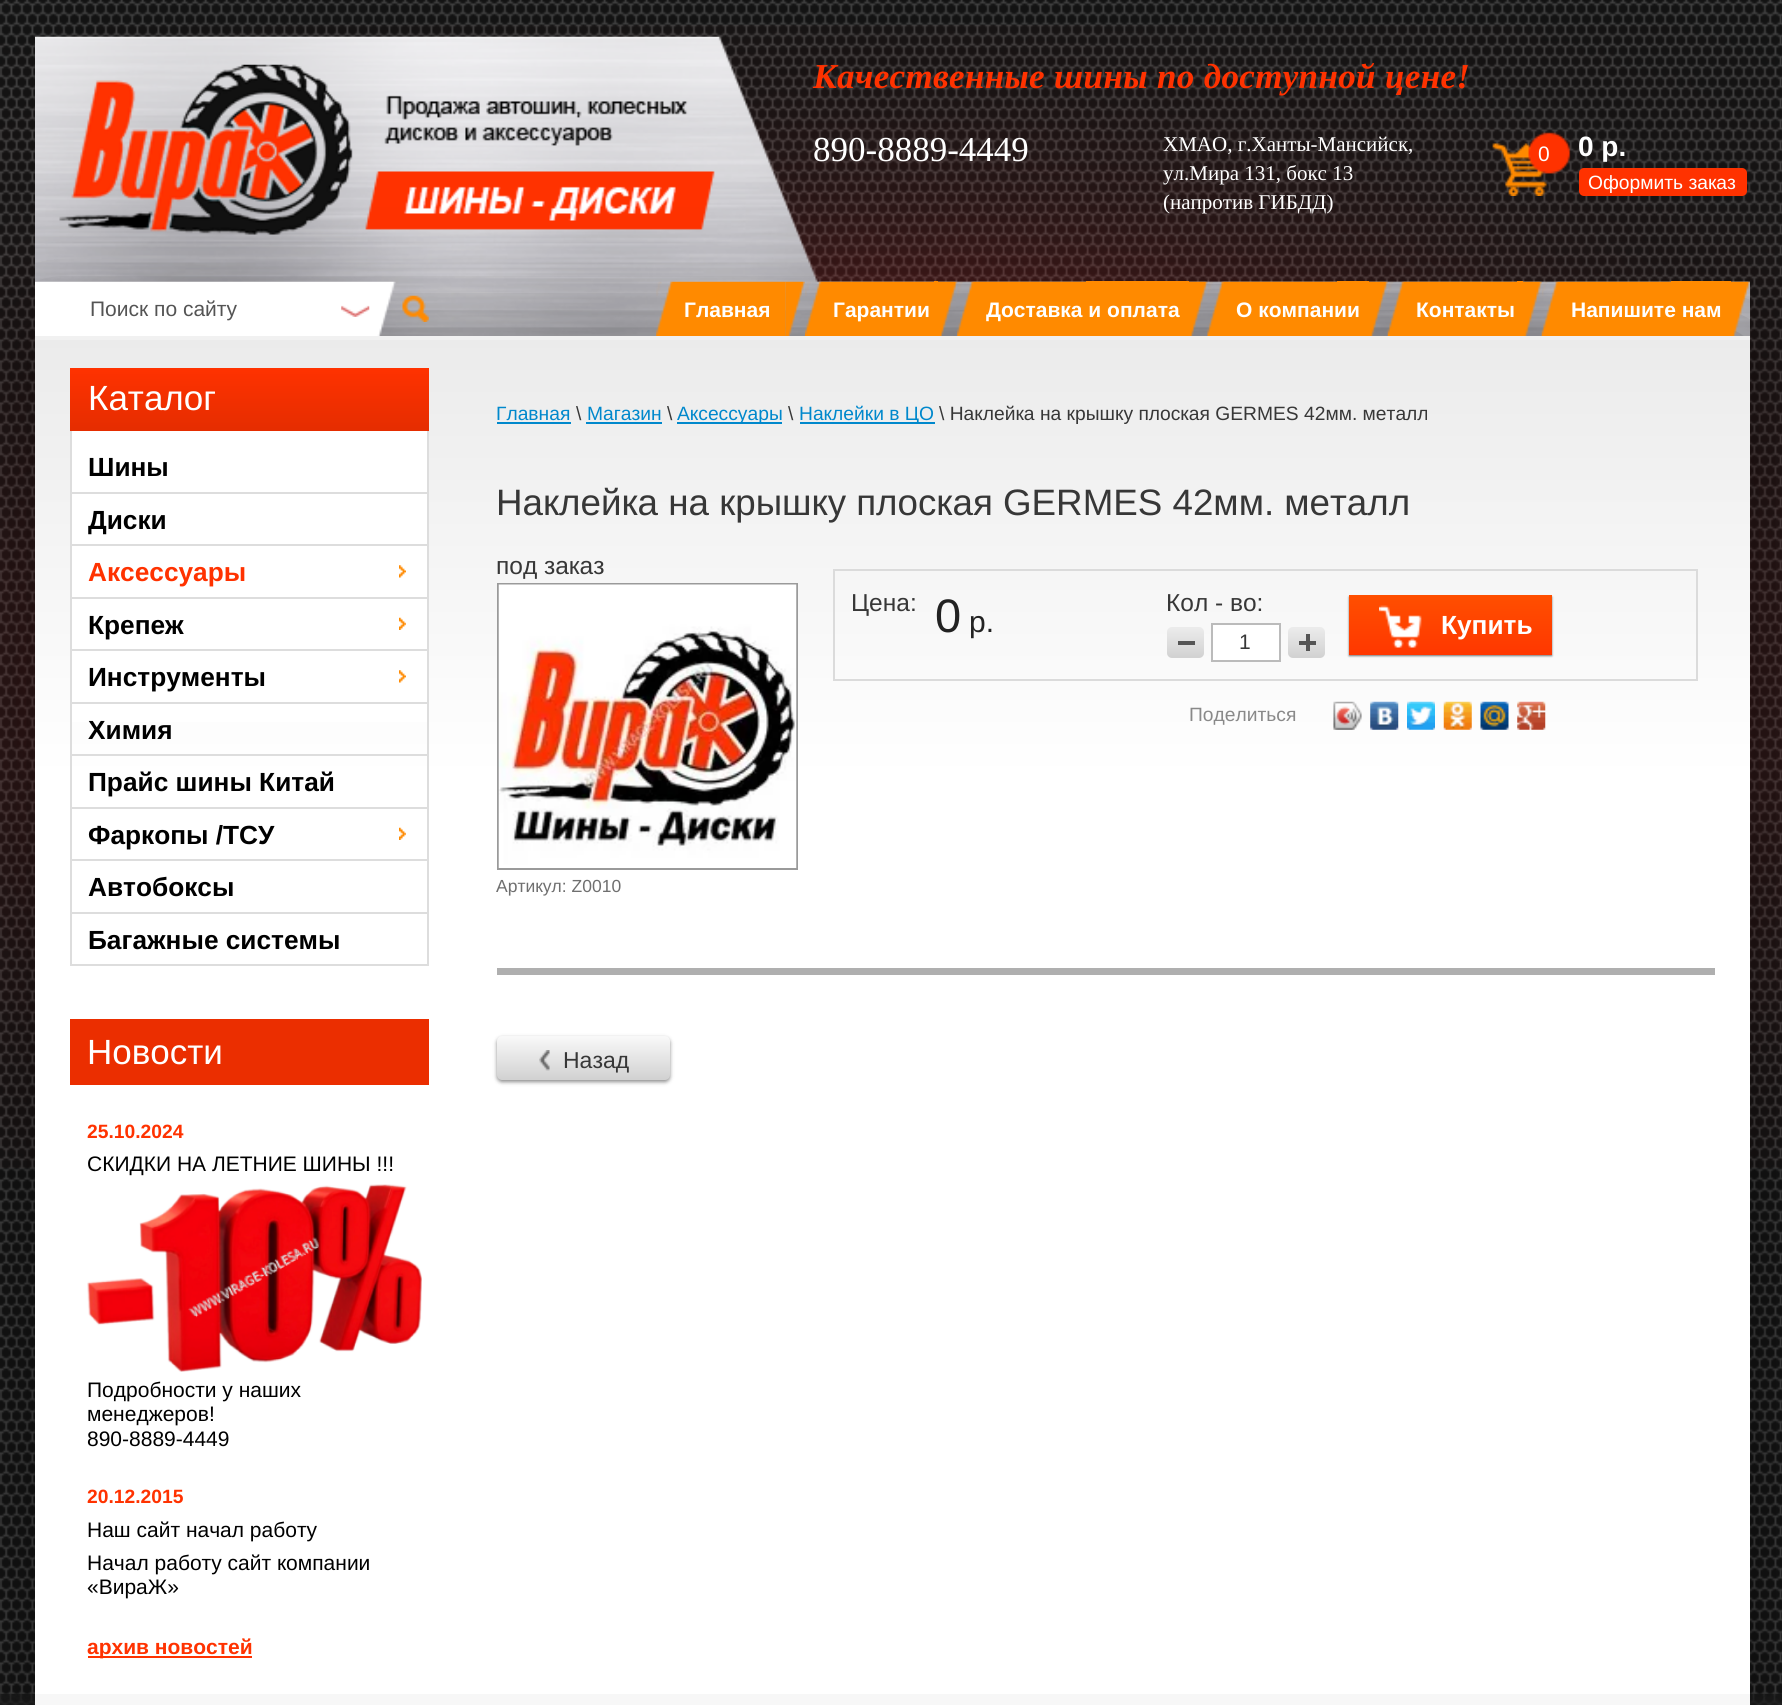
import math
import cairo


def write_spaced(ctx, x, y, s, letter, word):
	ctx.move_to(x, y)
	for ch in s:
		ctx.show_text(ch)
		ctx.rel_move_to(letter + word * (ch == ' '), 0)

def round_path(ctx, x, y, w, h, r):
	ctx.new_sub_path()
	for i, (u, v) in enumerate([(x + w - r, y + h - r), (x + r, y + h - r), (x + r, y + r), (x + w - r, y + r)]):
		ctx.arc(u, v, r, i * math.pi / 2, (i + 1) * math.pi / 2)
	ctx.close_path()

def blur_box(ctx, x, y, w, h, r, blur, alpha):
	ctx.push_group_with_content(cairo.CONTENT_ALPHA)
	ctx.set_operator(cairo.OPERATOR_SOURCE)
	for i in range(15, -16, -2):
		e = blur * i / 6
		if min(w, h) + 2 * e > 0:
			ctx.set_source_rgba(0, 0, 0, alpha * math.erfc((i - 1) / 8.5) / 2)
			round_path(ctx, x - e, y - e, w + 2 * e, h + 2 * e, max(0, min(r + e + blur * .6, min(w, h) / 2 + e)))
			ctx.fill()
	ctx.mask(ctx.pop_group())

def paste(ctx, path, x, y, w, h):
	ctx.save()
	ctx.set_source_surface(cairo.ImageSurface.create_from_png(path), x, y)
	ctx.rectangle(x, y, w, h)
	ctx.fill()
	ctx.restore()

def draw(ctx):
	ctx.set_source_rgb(1, 1, 1)
	ctx.paint()
	paste(ctx, 'media/1.png', 0, 0, 1782, 1694)
	paste(ctx, 'media/2.png', 0, 25, 1782, 1143)
	paste(ctx, 'media/3.png', 35, 36, 1715, 276)
	paste(ctx, 'media/4.png', 59, 64, 656, 171)
	ctx.select_font_face('Liberation Serif', cairo.FONT_SLANT_ITALIC, cairo.FONT_WEIGHT_BOLD)
	ctx.set_font_size(35)
	ctx.set_source_rgb(1, 0.196, 0)
	write_spaced(ctx, 813, 88, 'Качественные шины по доступной цене!', 0.35, 0)
	ctx.select_font_face('Liberation Serif')
	ctx.set_source_rgb(1, 1, 1)
	ctx.move_to(813, 161)
	ctx.show_text('890-8889-4449')
	ctx.set_font_size(21)
	for x, y, s in [
		(1163, 151, 'ХМАО, г.Ханты-Мансийск,'),
		(1163, 180, 'ул.Мира 131, бокс 13'),
		(1163, 209, '(напротив ГИБДД)'),
	]:
		ctx.move_to(x, y)
		ctx.show_text(s)
	paste(ctx, 'media/5.png', 1492, 132, 79, 64)
	ctx.select_font_face('Liberation Sans')
	ctx.move_to(1538, 161)
	ctx.show_text('0')
	ctx.select_font_face('Liberation Sans', cairo.FONT_SLANT_NORMAL, cairo.FONT_WEIGHT_BOLD)
	ctx.set_font_size(28)
	ctx.move_to(1578, 156)
	ctx.show_text('0 р.')
	ctx.set_source_rgb(1, 0.196, 0)
	round_path(ctx, 1579, 168, 168, 28, 5)
	ctx.fill()
	ctx.select_font_face('Liberation Sans')
	ctx.set_font_size(19.25)
	ctx.set_source_rgb(1, 1, 1)
	ctx.move_to(1588, 189)
	ctx.show_text('Оформить заказ')
	paste(ctx, 'media/21.png', 377, 311, 1373, 25)
	paste(ctx, 'media/35.png', 0, 1694, 1782, 11)
	ctx.set_source_rgb(0, 0, 0)
	blur_box(ctx, 35, 336, 1715, 1358, 0, 51.5, 0.46)
	paste(ctx, 'media/6.png', 35, 281, 361, 55)
	ctx.set_font_size(21)
	ctx.set_source_rgb(0.329, 0.329, 0.329)
	ctx.move_to(90, 316)
	ctx.show_text('Поиск по сайту')
	paste(ctx, 'media/7.png', 402, 295, 27, 27)
	paste(ctx, 'media/8.png', 341, 305, 29, 12)
	paste(ctx, 'media/9.png', 656, 281, 130, 55)
	ctx.select_font_face('Liberation Sans', cairo.FONT_SLANT_NORMAL, cairo.FONT_WEIGHT_BOLD)
	ctx.set_source_rgb(1, 1, 1)
	ctx.move_to(684, 317)
	ctx.show_text('Главная')
	paste(ctx, 'media/10.png', 785, 281, 20, 55)
	paste(ctx, 'media/11.png', 805, 281, 129, 55)
	ctx.move_to(833, 317)
	ctx.show_text('Гарантии')
	ctx.set_source_rgb(1, 0.541, 0)
	ctx.rectangle(934, 281, 4, 55)
	ctx.fill()
	paste(ctx, 'media/12.png', 938, 281, 20, 55)
	paste(ctx, 'media/13.png', 957, 281, 129, 55)
	ctx.rectangle(1086, 281, 103, 55)
	ctx.fill()
	paste(ctx, 'media/14.png', 1189, 281, 19, 55)
	ctx.set_source_rgb(1, 1, 1)
	ctx.move_to(986, 317)
	ctx.show_text('Доставка и оплата')
	paste(ctx, 'media/15.png', 1207, 281, 130, 55)
	ctx.set_source_rgb(1, 0.541, 0)
	ctx.rectangle(1337, 281, 32, 55)
	ctx.fill()
	paste(ctx, 'media/16.png', 1369, 281, 19, 55)
	ctx.set_source_rgb(1, 1, 1)
	ctx.move_to(1236, 317)
	ctx.show_text('О компании')
	paste(ctx, 'media/17.png', 1387, 281, 130, 55)
	ctx.move_to(1416, 317)
	ctx.show_text('Контакты')
	ctx.set_source_rgb(1, 0.541, 0)
	ctx.rectangle(1517, 281, 6, 55)
	ctx.fill()
	paste(ctx, 'media/18.png', 1523, 281, 19, 55)
	paste(ctx, 'media/19.png', 1541, 281, 130, 55)
	ctx.rectangle(1671, 281, 60, 55)
	ctx.fill()
	paste(ctx, 'media/20.png', 1731, 281, 19, 55)
	ctx.set_source_rgb(1, 1, 1)
	ctx.move_to(1571, 317)
	ctx.show_text('Напишите нам')
	ctx.rectangle(35, 777, 1715, 917)
	ctx.fill()
	gradient = cairo.LinearGradient(893, 339, 893, 777)
	gradient.add_color_stop_rgba(0, 0.922, 0.922, 0.922, 1)
	gradient.add_color_stop_rgba(1, 1, 1, 1, 1)
	ctx.set_source(gradient)
	ctx.rectangle(35, 340, 1715, 437)
	ctx.fill()
	ctx.set_source_rgb(0.945, 0.945, 0.945)
	ctx.rectangle(35, 336, 1715, 4)
	ctx.fill()
	gradient = cairo.LinearGradient(249, 368, 249, 431)
	gradient.add_color_stop_rgba(0, 1, 0.196, 0, 1)
	gradient.add_color_stop_rgba(1, 0.898, 0.176, 0, 1)
	ctx.set_source(gradient)
	ctx.rectangle(70, 368, 359, 63)
	ctx.fill()
	ctx.select_font_face('Liberation Sans')
	ctx.set_font_size(35)
	ctx.set_source_rgb(1, 1, 1)
	ctx.move_to(88, 410)
	ctx.show_text('Каталог')
	ctx.rectangle(72, 431, 355, 291)
	ctx.fill()
	ctx.set_source_rgb(0.867, 0.867, 0.867)
	ctx.rectangle(427, 431, 2, 535)
	ctx.rectangle(70, 964, 359, 2)
	ctx.rectangle(70, 431, 2, 535)
	ctx.rectangle(72, 492, 355, 2)
	ctx.fill()
	ctx.select_font_face('Liberation Sans', cairo.FONT_SLANT_NORMAL, cairo.FONT_WEIGHT_BOLD)
	ctx.set_font_size(26.25)
	ctx.set_source_rgb(0, 0, 0)
	ctx.move_to(88, 476)
	ctx.show_text('Шины')
	ctx.set_source_rgb(0.867, 0.867, 0.867)
	ctx.rectangle(72, 544, 355, 2)
	ctx.fill()
	ctx.set_source_rgb(0, 0, 0)
	ctx.move_to(88, 529)
	ctx.show_text('Диски')
	ctx.set_source_rgb(0.867, 0.867, 0.867)
	ctx.rectangle(72, 597, 355, 2)
	ctx.fill()
	paste(ctx, 'media/22.png', 399, 565, 7, 13)
	ctx.set_source_rgb(1, 0.196, 0)
	ctx.move_to(88, 581)
	ctx.show_text('Аксеcсуары')
	ctx.set_source_rgb(0.867, 0.867, 0.867)
	ctx.rectangle(72, 649, 355, 2)
	ctx.fill()
	paste(ctx, 'media/23.png', 399, 617, 7, 13)
	ctx.set_source_rgb(0, 0, 0)
	ctx.move_to(88, 634)
	ctx.show_text('Крепеж')
	ctx.set_source_rgb(0.867, 0.867, 0.867)
	ctx.rectangle(72, 702, 355, 2)
	ctx.fill()
	paste(ctx, 'media/22.png', 399, 670, 7, 13)
	ctx.set_source_rgb(0, 0, 0)
	ctx.move_to(88, 686)
	ctx.show_text('Инструменты')
	ctx.set_source_rgb(0.867, 0.867, 0.867)
	ctx.rectangle(72, 754, 355, 2)
	ctx.fill()
	ctx.set_source_rgb(0, 0, 0)
	ctx.move_to(88, 739)
	ctx.show_text('Химия')
	ctx.set_source_rgb(0.867, 0.867, 0.867)
	ctx.rectangle(72, 807, 355, 2)
	ctx.fill()
	ctx.set_source_rgb(0, 0, 0)
	ctx.move_to(88, 791)
	ctx.show_text('Прайс шины Китай')
	ctx.set_source_rgb(0.867, 0.867, 0.867)
	ctx.rectangle(72, 859, 355, 2)
	ctx.fill()
	paste(ctx, 'media/23.png', 399, 827, 7, 13)
	ctx.set_source_rgb(0, 0, 0)
	ctx.move_to(88, 844)
	ctx.show_text('Фаркопы /ТСУ')
	ctx.set_source_rgb(0.867, 0.867, 0.867)
	ctx.rectangle(72, 912, 355, 2)
	ctx.fill()
	ctx.set_source_rgb(0, 0, 0)
	ctx.move_to(88, 896)
	ctx.show_text('Автобоксы')
	ctx.move_to(88, 949)
	ctx.show_text('Багажные системы')
	ctx.set_source_rgb(0.918, 0.18, 0)
	ctx.rectangle(70, 1019, 359, 66)
	ctx.fill()
	ctx.select_font_face('Liberation Sans')
	ctx.set_font_size(35)
	ctx.set_source_rgb(1, 1, 1)
	ctx.move_to(87, 1064)
	ctx.show_text('Новости')
	ctx.select_font_face('Liberation Sans', cairo.FONT_SLANT_NORMAL, cairo.FONT_WEIGHT_BOLD)
	ctx.set_font_size(19.25)
	ctx.set_source_rgb(1, 0.196, 0)
	ctx.move_to(87, 1138)
	ctx.show_text('25.10.2024')
	ctx.select_font_face('Liberation Sans')
	ctx.set_font_size(21)
	ctx.set_source_rgb(0, 0, 0)
	ctx.move_to(87, 1171)
	ctx.show_text('СКИДКИ НА ЛЕТНИЕ ШИНЫ !!!')
	paste(ctx, 'media/24.png', 87, 1184, 335, 188)
	for x, y, s in [
		(87, 1397, 'Подробности у наших'),
		(87, 1421, 'менеджеров!'),
		(87, 1446, '890-8889-4449'),
	]:
		ctx.move_to(x, y)
		ctx.show_text(s)
	ctx.select_font_face('Liberation Sans', cairo.FONT_SLANT_NORMAL, cairo.FONT_WEIGHT_BOLD)
	ctx.set_font_size(19.25)
	ctx.set_source_rgb(1, 0.196, 0)
	ctx.move_to(87, 1503)
	ctx.show_text('20.12.2015')
	ctx.select_font_face('Liberation Sans')
	ctx.set_font_size(21)
	ctx.set_source_rgb(0, 0, 0)
	for x, y, s in [
		(87, 1537, 'Наш сайт начал работу'),
		(87, 1570, 'Начал работу сайт компании'),
		(87, 1594, '«ВираЖ»'),
	]:
		ctx.move_to(x, y)
		ctx.show_text(s)
	ctx.set_source_rgb(1, 0.196, 0)
	ctx.rectangle(88, 1656, 164, 2)
	ctx.fill()
	ctx.select_font_face('Liberation Sans', cairo.FONT_SLANT_NORMAL, cairo.FONT_WEIGHT_BOLD)
	ctx.move_to(87, 1654)
	ctx.show_text('архив новостей')
	ctx.select_font_face('Liberation Sans')
	ctx.set_font_size(19.25)
	ctx.set_source_rgb(0, 0.533, 0.8)
	ctx.move_to(496, 420)
	ctx.show_text('Главная')
	ctx.rectangle(497, 422, 74, 2)
	ctx.fill()
	ctx.set_source_rgb(0.216, 0.216, 0.216)
	ctx.move_to(576, 420)
	ctx.show_text('\\')
	ctx.set_source_rgb(0, 0.533, 0.8)
	ctx.move_to(587, 420)
	ctx.show_text('Магазин')
	ctx.rectangle(586, 422, 76, 2)
	ctx.fill()
	ctx.set_source_rgb(0.216, 0.216, 0.216)
	ctx.move_to(667, 420)
	ctx.show_text('\\')
	ctx.set_source_rgb(0, 0.533, 0.8)
	ctx.rectangle(677, 422, 105, 2)
	ctx.fill()
	ctx.move_to(677, 420)
	ctx.show_text('Аксеcсуары')
	ctx.set_source_rgb(0.216, 0.216, 0.216)
	ctx.move_to(788, 420)
	ctx.show_text('\\')
	ctx.set_source_rgb(0, 0.533, 0.8)
	ctx.rectangle(800, 422, 135, 2)
	ctx.fill()
	ctx.move_to(799, 420)
	ctx.show_text('Наклейки в ЦО')
	ctx.set_source_rgb(0.216, 0.216, 0.216)
	ctx.move_to(939, 420)
	ctx.show_text('\\ Наклейка на крышку плоская GERMES 42мм. металл')
	ctx.set_font_size(36.75)
	ctx.move_to(496, 515)
	ctx.show_text('Наклейка на крышку плоская GERMES 42мм. металл')
	ctx.set_font_size(24.5)
	ctx.move_to(496, 574)
	ctx.show_text('под заказ')
	ctx.rectangle(498, 584, 299, 285)
	ctx.set_source_rgb(0.604, 0.604, 0.604)
	ctx.stroke()
	paste(ctx, 'media/25.png', 498, 584, 299, 284)
	ctx.set_font_size(17.5)
	ctx.set_source_rgb(0.435, 0.435, 0.435)
	ctx.move_to(496, 892)
	ctx.show_text('Артикул: Z0010')
	ctx.rectangle(834, 570, 863, 110)
	ctx.set_source_rgb(0.859, 0.859, 0.859)
	ctx.stroke()
	ctx.set_font_size(24.5)
	ctx.set_source_rgb(0.216, 0.216, 0.216)
	ctx.move_to(851, 611)
	ctx.show_text('Цена:')
	ctx.set_font_size(47)
	ctx.set_source_rgb(0.133, 0.133, 0.133)
	ctx.move_to(935, 632)
	ctx.show_text('0')
	ctx.set_font_size(30)
	ctx.move_to(969, 632)
	ctx.show_text('р.')
	ctx.set_font_size(24.5)
	ctx.set_source_rgb(0.216, 0.216, 0.216)
	ctx.move_to(1166, 611)
	ctx.show_text('Кол - во:')
	gradient = cairo.LinearGradient(1186, 627, 1186, 658)
	gradient.add_color_stop_rgba(0, 0.925, 0.925, 0.925, 1)
	gradient.add_color_stop_rgba(1, 0.82, 0.82, 0.82, 1)
	ctx.set_source(gradient)
	round_path(ctx, 1167, 627, 37, 31, 5)
	ctx.fill()
	ctx.set_source_rgb(0.333, 0.333, 0.333)
	ctx.rectangle(1178, 641, 17, 4)
	ctx.fill()
	ctx.set_source_rgb(1, 1, 1)
	ctx.rectangle(1212, 624, 68, 37)
	ctx.fill_preserve()
	ctx.set_source_rgb(0.733, 0.733, 0.733)
	ctx.stroke()
	ctx.set_font_size(21)
	ctx.set_source_rgb(0.216, 0.216, 0.216)
	ctx.move_to(1239, 649)
	ctx.show_text('1')
	gradient = cairo.LinearGradient(1306, 627, 1306, 658)
	gradient.add_color_stop_rgba(0, 0.925, 0.925, 0.925, 1)
	gradient.add_color_stop_rgba(1, 0.82, 0.82, 0.82, 1)
	ctx.set_source(gradient)
	round_path(ctx, 1288, 627, 37, 31, 5)
	ctx.fill()
	ctx.set_source_rgb(0.333, 0.333, 0.333)
	ctx.rectangle(1299, 641, 17, 4)
	ctx.fill()
	ctx.rectangle(1306, 634, 4, 17)
	ctx.fill()
	ctx.set_source_rgb(0.467, 0.467, 0.467)
	blur_box(ctx, 1349, 597, 203, 59, 0, 1, 1)
	gradient = cairo.LinearGradient(1451, 595, 1451, 655)
	gradient.add_color_stop_rgba(0, 1, 0.31, 0, 1)
	gradient.add_color_stop_rgba(1, 1, 0.216, 0, 1)
	ctx.set_source(gradient)
	ctx.rectangle(1349, 595, 203, 60)
	ctx.fill()
	paste(ctx, 'media/26.png', 1379, 605, 43, 43)
	ctx.select_font_face('Liberation Sans', cairo.FONT_SLANT_NORMAL, cairo.FONT_WEIGHT_BOLD)
	ctx.set_font_size(26.25)
	ctx.set_source_rgb(1, 1, 1)
	ctx.move_to(1441, 634)
	ctx.show_text('Купить')
	ctx.select_font_face('Liberation Sans')
	ctx.set_font_size(19.25)
	ctx.set_source_rgb(0.537, 0.537, 0.537)
	ctx.move_to(1189, 721)
	ctx.show_text('Поделиться')
	paste(ctx, 'media/27.png', 1333, 701, 29, 29)
	paste(ctx, 'media/28.png', 1333, 701, 29, 29)
	paste(ctx, 'media/29.png', 1370, 701, 29, 29)
	paste(ctx, 'media/30.png', 1407, 701, 28, 29)
	paste(ctx, 'media/31.png', 1443, 701, 29, 29)
	paste(ctx, 'media/32.png', 1480, 701, 29, 29)
	paste(ctx, 'media/33.png', 1517, 701, 29, 29)
	ctx.set_source_rgb(0.686, 0.686, 0.686)
	ctx.rectangle(497, 968, 1218, 7)
	ctx.fill()
	ctx.set_source_rgb(0, 0, 0)
	blur_box(ctx, 497, 1038, 173, 44, 5, 2, 0.45)
	gradient = cairo.LinearGradient(584, 1036, 584, 1080)
	gradient.add_color_stop_rgba(0, 0.976, 0.976, 0.976, 1)
	gradient.add_color_stop_rgba(1, 0.82, 0.82, 0.82, 1)
	ctx.set_source(gradient)
	round_path(ctx, 497, 1036, 173, 44, 5)
	ctx.fill()
	paste(ctx, 'media/34.png', 539, 1050, 11, 21)
	ctx.set_font_size(23)
	ctx.set_source_rgb(0.216, 0.216, 0.216)
	ctx.move_to(563, 1068)
	ctx.show_text('Назад')
	gradient = cairo.LinearGradient(893, 1694, 893, 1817)
	gradient.add_color_stop_rgba(0, 0.969, 0.969, 0.969, 1)
	gradient.add_color_stop_rgba(1, 0.973, 0.973, 0.973, 1)
	ctx.set_source(gradient)
	ctx.rectangle(35, 1694, 1715, 11)
	ctx.fill()


surface = cairo.ImageSurface(cairo.FORMAT_RGB24, 1782, 1705)
ctx = cairo.Context(surface)
options = cairo.FontOptions()
options.set_hint_metrics(cairo.HINT_METRICS_OFF)
options.set_hint_style(cairo.HINT_STYLE_NONE)
ctx.set_font_options(options)
ctx.set_miter_limit(4)
draw(ctx)
surface.write_to_png('image.png')
